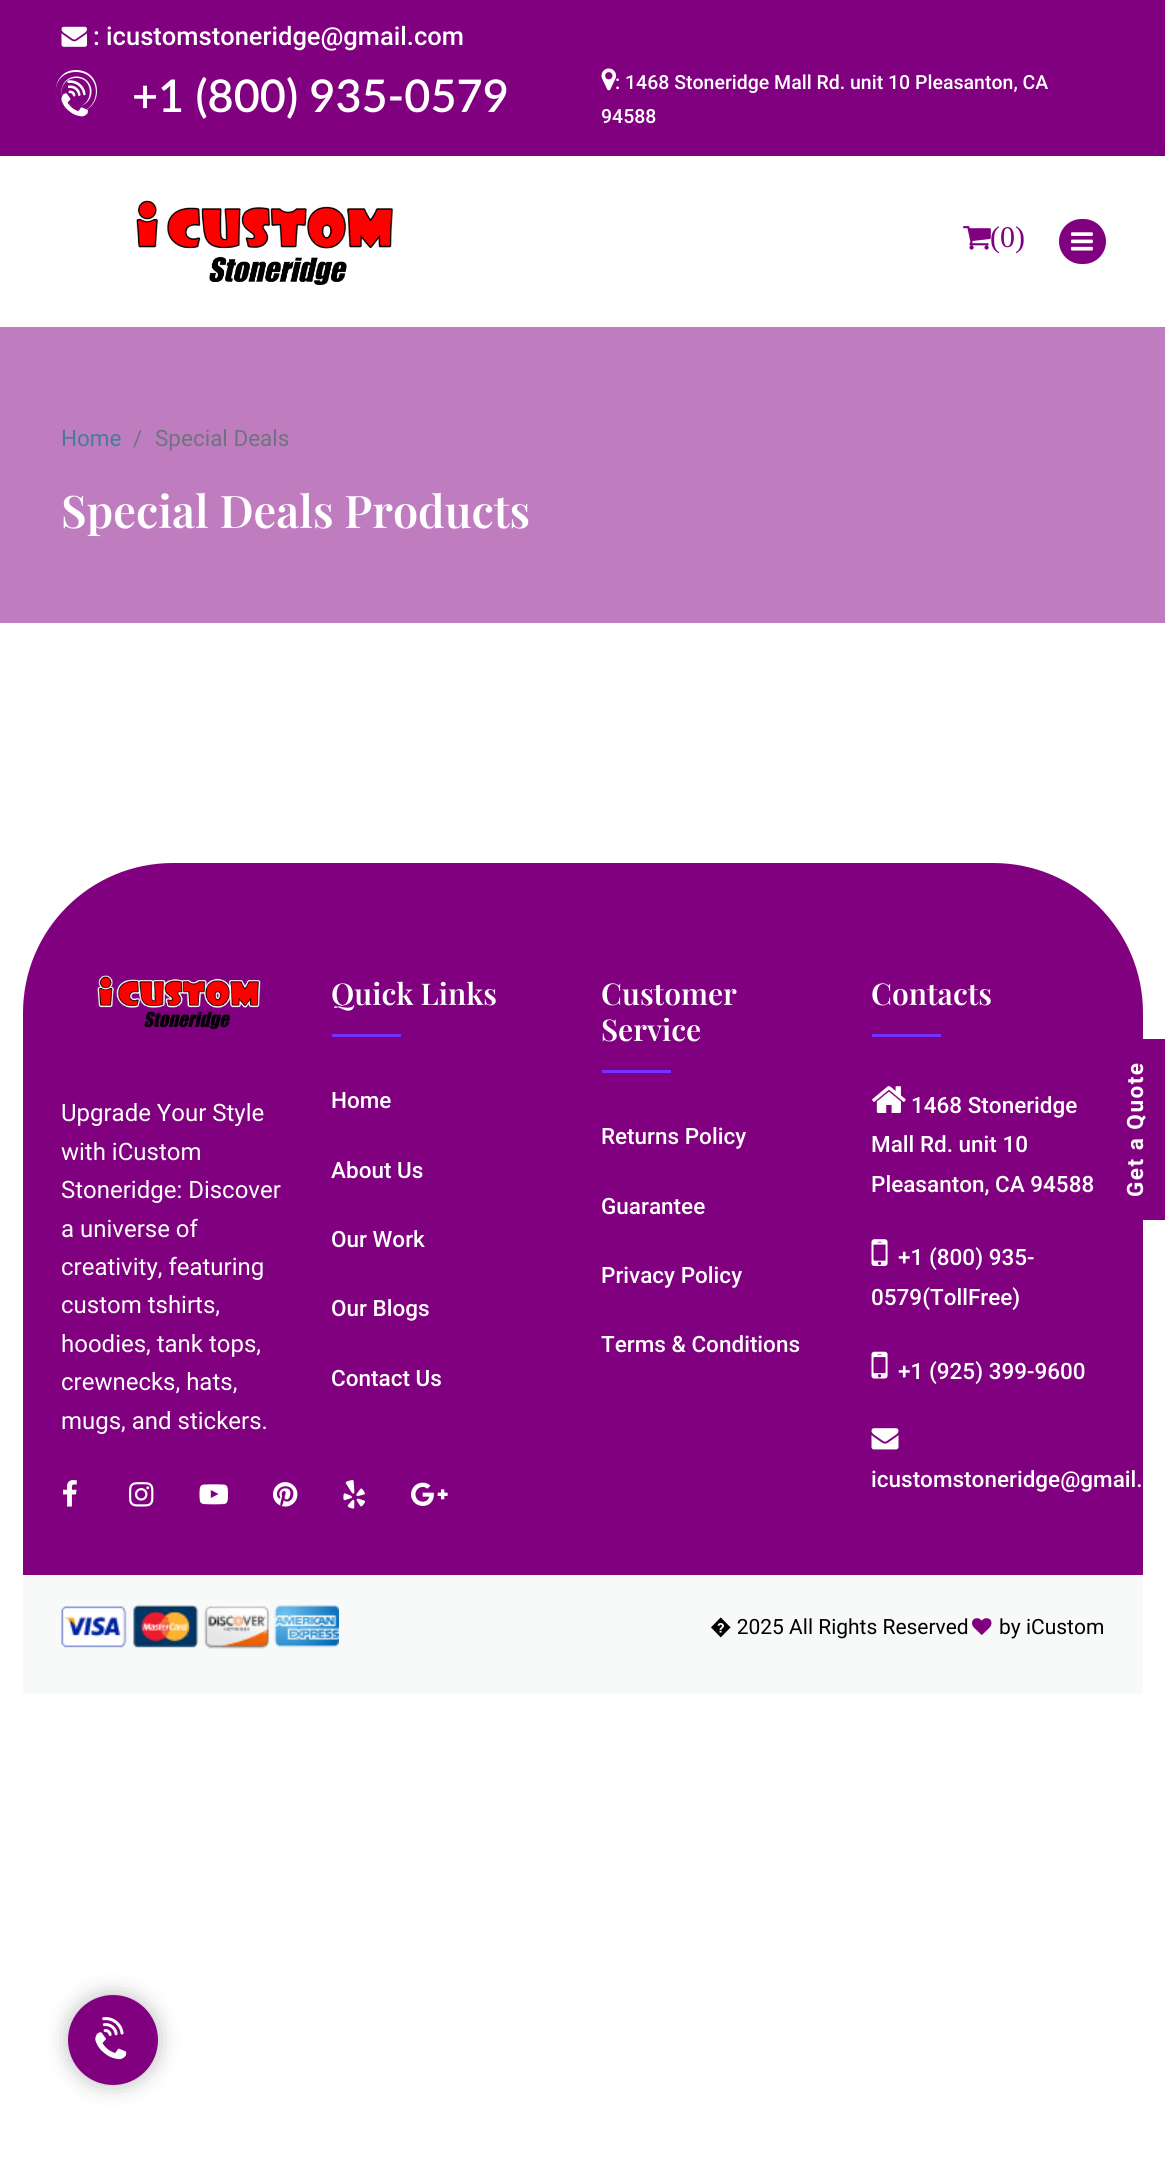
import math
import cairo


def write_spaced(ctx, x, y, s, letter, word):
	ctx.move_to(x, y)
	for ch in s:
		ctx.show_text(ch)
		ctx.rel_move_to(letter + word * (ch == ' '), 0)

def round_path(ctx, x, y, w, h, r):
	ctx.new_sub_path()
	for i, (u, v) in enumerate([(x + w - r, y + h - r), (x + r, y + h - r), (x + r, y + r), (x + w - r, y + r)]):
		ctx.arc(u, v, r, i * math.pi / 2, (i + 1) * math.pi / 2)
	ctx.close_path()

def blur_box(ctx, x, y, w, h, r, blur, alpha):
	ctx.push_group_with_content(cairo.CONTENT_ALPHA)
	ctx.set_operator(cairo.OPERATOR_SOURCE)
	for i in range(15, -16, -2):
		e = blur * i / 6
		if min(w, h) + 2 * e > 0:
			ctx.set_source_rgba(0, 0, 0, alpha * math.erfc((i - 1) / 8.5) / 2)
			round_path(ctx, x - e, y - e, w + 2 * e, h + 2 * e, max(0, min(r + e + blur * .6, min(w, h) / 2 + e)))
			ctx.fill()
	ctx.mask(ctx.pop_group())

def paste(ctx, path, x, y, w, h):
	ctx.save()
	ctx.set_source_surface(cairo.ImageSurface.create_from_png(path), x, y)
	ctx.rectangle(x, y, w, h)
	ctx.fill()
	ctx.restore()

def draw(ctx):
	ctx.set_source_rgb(1, 1, 1)
	ctx.paint()
	ctx.set_source_rgb(0.502, 0, 0.502)
	ctx.rectangle(0, 0, 1165, 156)
	ctx.fill()
	paste(ctx, 'media/1.png', 61, 26, 26, 21)
	ctx.select_font_face('Roboto Medium')
	ctx.set_font_size(25.5)
	ctx.set_source_rgb(1, 1, 1)
	ctx.move_to(93, 45)
	ctx.show_text(': icustomstoneridge@gmail.com')
	paste(ctx, 'media/2.png', 61, 80, 27, 37)
	ctx.set_fill_rule(cairo.FILL_RULE_EVEN_ODD)
	ctx.new_path()
	ctx.move_to(76.5, 76.5)
	ctx.curve_to(85, 76.5, 91.5, 83, 91.5, 91.5)
	ctx.curve_to(91.5, 100, 85, 106.5, 76.5, 106.5)
	ctx.curve_to(68, 106.5, 61.5, 100, 61.5, 91.5)
	ctx.curve_to(61.5, 83, 68, 76.5, 76.5, 76.5)
	ctx.close_path()
	ctx.move_to(76.5, 78)
	ctx.curve_to(95, 78, 93.5, 106.5, 76.5, 106.5)
	ctx.curve_to(57.5, 106.5, 56, 78, 76.5, 78)
	ctx.close_path()
	ctx.fill()
	ctx.new_path()
	ctx.move_to(76, 70)
	ctx.curve_to(104, 70, 104, 112, 76, 112)
	ctx.curve_to(49, 112, 49, 70, 76, 70)
	ctx.close_path()
	ctx.move_to(76, 72)
	ctx.curve_to(103, 72, 102, 112, 76, 112)
	ctx.curve_to(50, 112, 48, 72, 76, 72)
	ctx.close_path()
	ctx.fill()
	ctx.select_font_face('Lato SemiBold')
	ctx.set_font_size(45)
	ctx.move_to(132, 112)
	ctx.show_text('+1 (800) 935-0579')
	paste(ctx, 'media/3.png', 601, 68, 16, 23)
	ctx.select_font_face('Roboto Medium')
	ctx.set_font_size(19.5)
	ctx.move_to(615, 89)
	ctx.show_text(': 1468 Stoneridge Mall Rd. unit 10 Pleasanton, CA')
	ctx.move_to(601, 123)
	ctx.show_text('94588')
	paste(ctx, 'media/4.png', 134, 200, 261, 85)
	paste(ctx, 'media/5.png', 963, 226, 28, 24)
	ctx.select_font_face('Liberation Serif')
	ctx.set_font_size(30)
	ctx.set_source_rgb(0.502, 0, 0.502)
	ctx.move_to(990, 247)
	ctx.show_text('(0)')
	round_path(ctx, 1059, 219, 47, 45, 22.5)
	ctx.fill()
	paste(ctx, 'media/6.png', 1071, 232, 22, 19)
	ctx.set_source_rgb(0.749, 0.49, 0.749)
	ctx.rectangle(0, 327, 1165, 296)
	ctx.fill()
	ctx.select_font_face('Roboto')
	ctx.set_font_size(22.5)
	ctx.set_source_rgb(0.271, 0.482, 0.616)
	ctx.move_to(61, 446)
	ctx.show_text('Home')
	ctx.set_source_rgb(0.424, 0.459, 0.49)
	ctx.move_to(133, 446)
	ctx.show_text('/')
	ctx.move_to(155, 446)
	ctx.show_text('Special Deals')
	ctx.select_font_face('Playfair Display SemiBold')
	ctx.set_font_size(45)
	ctx.set_source_rgb(1, 1, 1)
	ctx.move_to(61, 528)
	ctx.show_text('Special Deals Products')
	ctx.set_source_rgb(0.502, 0, 0.502)
	ctx.new_path()
	ctx.move_to(173, 863)
	ctx.line_to(993, 863)
	ctx.curve_to(1076, 863, 1143, 930, 1143, 1013)
	ctx.line_to(1143, 1575)
	ctx.line_to(23, 1575)
	ctx.line_to(23, 1013)
	ctx.curve_to(23, 930, 90, 863, 173, 863)
	ctx.close_path()
	ctx.fill()
	paste(ctx, 'media/7.png', 97, 975, 164, 54)
	ctx.select_font_face('Roboto')
	ctx.set_font_size(24)
	ctx.set_source_rgb(1, 1, 1)
	for x, y, s in [
		(61, 1121, 'Upgrade Your Style'),
		(61, 1160, 'with iCustom'),
		(61, 1198, 'Stoneridge: Discover'),
		(61, 1237, 'a universe of'),
		(61, 1275, 'creativity, featuring'),
		(61, 1313, 'custom tshirts,'),
		(61, 1352, 'hoodies, tank tops,'),
		(61, 1390, 'crewnecks, hats,'),
		(61, 1429, 'mugs, and stickers.'),
	]:
		ctx.move_to(x, y)
		ctx.show_text(s)
	paste(ctx, 'media/8.png', 63, 1480, 14, 27)
	paste(ctx, 'media/9.png', 129, 1482, 25, 25)
	paste(ctx, 'media/10.png', 199, 1484, 29, 21)
	paste(ctx, 'media/11.png', 273, 1482, 25, 25)
	paste(ctx, 'media/12.png', 343, 1480, 23, 29)
	paste(ctx, 'media/13.png', 411, 1482, 37, 24)
	ctx.select_font_face('Playfair Display SemiBold')
	ctx.set_font_size(30)
	ctx.move_to(331, 1005)
	ctx.show_text('Quick Links')
	ctx.set_source_rgb(0.447, 0.2, 1)
	ctx.rectangle(332, 1034, 69, 3)
	ctx.fill()
	ctx.select_font_face('Roboto Medium')
	ctx.set_font_size(22.5)
	ctx.set_source_rgb(1, 1, 1)
	for x, y, s in [
		(331, 1108, 'Home'),
		(331, 1178, 'About Us'),
		(331, 1247, 'Our Work'),
		(331, 1316, 'Our Blogs'),
		(331, 1386, 'Contact Us'),
	]:
		ctx.move_to(x, y)
		ctx.show_text(s)
	ctx.select_font_face('Playfair Display SemiBold')
	ctx.set_font_size(30)
	ctx.move_to(601, 1005)
	ctx.show_text('Customer')
	ctx.move_to(601, 1041)
	ctx.show_text('Service')
	ctx.set_source_rgb(0.447, 0.2, 1)
	ctx.rectangle(602, 1070, 69, 3)
	ctx.fill()
	ctx.select_font_face('Roboto Medium')
	ctx.set_font_size(22.5)
	ctx.set_source_rgb(1, 1, 1)
	for x, y, s in [
		(601, 1144, 'Returns Policy'),
		(601, 1214, 'Guarantee'),
		(601, 1283, 'Privacy Policy'),
		(601, 1352, 'Terms & Conditions'),
	]:
		ctx.move_to(x, y)
		ctx.show_text(s)
	ctx.select_font_face('Playfair Display SemiBold')
	ctx.set_font_size(30)
	ctx.move_to(871, 1005)
	ctx.show_text('Contacts')
	ctx.set_source_rgb(0.447, 0.2, 1)
	ctx.rectangle(872, 1034, 69, 3)
	ctx.fill()
	paste(ctx, 'media/14.png', 872, 1086, 34, 27)
	ctx.select_font_face('Roboto Medium')
	ctx.set_font_size(22.5)
	ctx.set_source_rgb(1, 1, 1)
	for x, y, s in [
		(911, 1113, '1468 Stoneridge'),
		(871, 1152, 'Mall Rd. unit 10'),
		(871, 1192, 'Pleasanton, CA 94588'),
	]:
		ctx.move_to(x, y)
		ctx.show_text(s)
	paste(ctx, 'media/15.png', 871, 1239, 17, 27)
	ctx.move_to(898, 1265)
	ctx.show_text('+1 (800) 935-')
	ctx.move_to(871, 1305)
	ctx.show_text('0579(TollFree)')
	paste(ctx, 'media/16.png', 871, 1351, 17, 28)
	ctx.move_to(898, 1379)
	ctx.show_text('+1 (925) 399-9600')
	paste(ctx, 'media/17.png', 871, 1428, 28, 22)
	ctx.move_to(871, 1487)
	ctx.show_text('icustomstoneridge@gmail.')
	ctx.set_source_rgb(0.969, 0.973, 0.976)
	ctx.rectangle(23, 1575, 1120, 119)
	ctx.fill()
	paste(ctx, 'media/18.png', 61, 1605, 278, 44)
	ctx.select_font_face('Roboto')
	ctx.set_font_size(21)
	ctx.set_source_rgb(0, 0, 0)
	ctx.move_to(710, 1634)
	ctx.show_text('� 2025 All Rights Reserved')
	paste(ctx, 'media/19.png', 972, 1618, 20, 17)
	ctx.move_to(999, 1634)
	ctx.show_text('by iCustom')
	ctx.set_source_rgb(0.502, 0, 0.502)
	ctx.set_fill_rule(cairo.FILL_RULE_WINDING)
	ctx.new_path()
	ctx.move_to(1108, 1212)
	ctx.line_to(1108, 1047)
	ctx.curve_to(1108, 1043, 1111, 1039, 1116, 1039)
	ctx.line_to(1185, 1039)
	ctx.curve_to(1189, 1039, 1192, 1043, 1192, 1047)
	ctx.line_to(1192, 1212)
	ctx.curve_to(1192, 1217, 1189, 1220, 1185, 1220)
	ctx.line_to(1116, 1220)
	ctx.curve_to(1111, 1220, 1108, 1217, 1108, 1212)
	ctx.close_path()
	ctx.fill()
	ctx.select_font_face('Roboto', cairo.FONT_SLANT_NORMAL, cairo.FONT_WEIGHT_BOLD)
	ctx.set_font_size(22.5)
	ctx.set_source_rgb(1, 1, 1)
	ctx.save()
	ctx.translate(1143, 1197)
	ctx.rotate(-90 * math.pi / 180)
	write_spaced(ctx, 0, 0, 'Get a Quote', 1.5, 0)
	ctx.restore()
	ctx.set_source_rgb(0, 0, 0)
	blur_box(ctx, 68, 1995, 90, 90, 45, 11, 0.27)
	ctx.set_source_rgb(0.502, 0, 0.502)
	ctx.arc(113, 2040, 45, 0, 2 * math.pi)
	ctx.fill()
	paste(ctx, 'media/20.png', 95, 2017, 32, 43)


surface = cairo.ImageSurface(cairo.FORMAT_RGB24, 1165, 2175)
ctx = cairo.Context(surface)
options = cairo.FontOptions()
options.set_hint_metrics(cairo.HINT_METRICS_OFF)
options.set_hint_style(cairo.HINT_STYLE_NONE)
ctx.set_font_options(options)
ctx.set_miter_limit(4)
draw(ctx)
surface.write_to_png('image.png')
